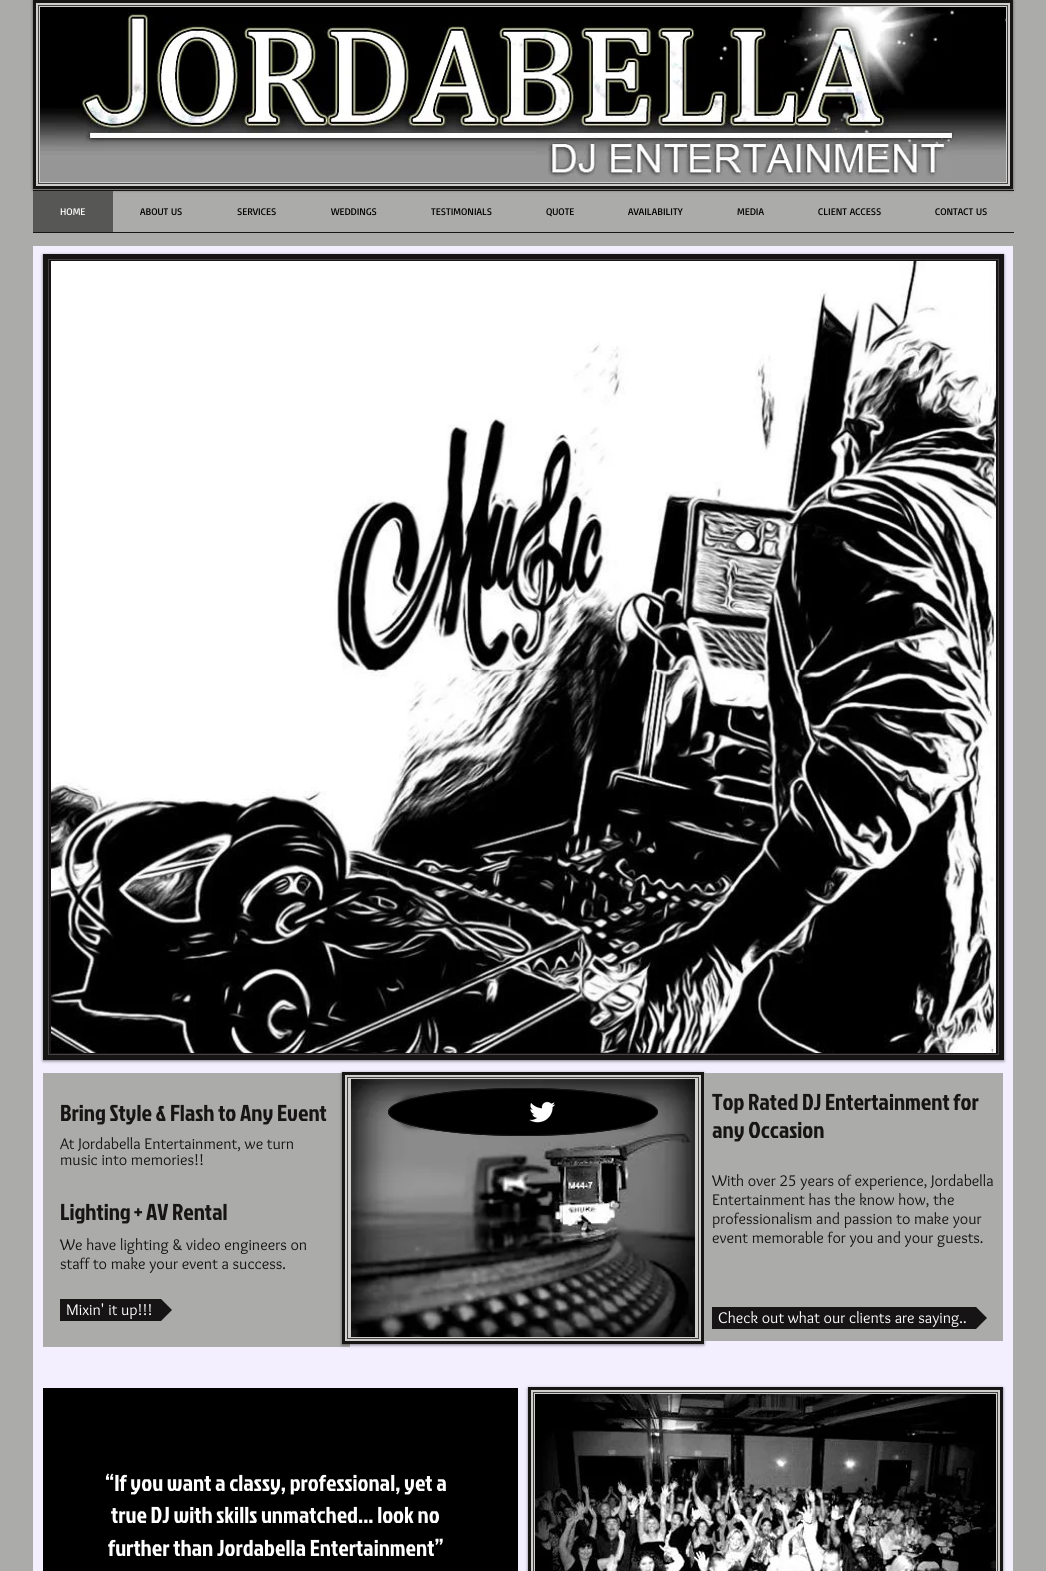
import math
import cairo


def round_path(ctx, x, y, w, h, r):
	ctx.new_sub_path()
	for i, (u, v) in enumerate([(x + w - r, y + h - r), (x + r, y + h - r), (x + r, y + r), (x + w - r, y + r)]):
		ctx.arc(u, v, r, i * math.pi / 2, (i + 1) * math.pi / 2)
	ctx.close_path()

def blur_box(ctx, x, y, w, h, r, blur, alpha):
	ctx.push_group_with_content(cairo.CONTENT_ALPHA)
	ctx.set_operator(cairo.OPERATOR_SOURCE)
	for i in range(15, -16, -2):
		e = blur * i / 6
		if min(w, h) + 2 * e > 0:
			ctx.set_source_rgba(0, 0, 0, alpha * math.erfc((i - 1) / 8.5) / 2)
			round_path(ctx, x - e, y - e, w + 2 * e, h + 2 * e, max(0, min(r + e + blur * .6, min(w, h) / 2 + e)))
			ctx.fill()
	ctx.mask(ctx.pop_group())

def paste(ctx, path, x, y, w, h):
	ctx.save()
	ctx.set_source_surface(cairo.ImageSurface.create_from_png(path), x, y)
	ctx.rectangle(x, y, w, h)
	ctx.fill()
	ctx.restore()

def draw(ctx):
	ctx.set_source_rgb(0.671, 0.671, 0.663)
	ctx.paint()
	ctx.set_source_rgb(0, 0, 0)
	blur_box(ctx, 33, 1, 980, 189, 0, 1.5, 0.5)
	ctx.set_source_rgb(0.816, 0.804, 0.804)
	ctx.rectangle(34.5, 1.5, 977, 186)
	ctx.fill_preserve()
	ctx.set_source_rgb(0.086, 0.082, 0.082)
	ctx.set_line_width(3)
	ctx.stroke()
	paste(ctx, 'media/1.png', 40, 7, 966, 175)
	ctx.rectangle(38.5, 5.5, 969, 178)
	ctx.set_source_rgb(0.271, 0.259, 0.259)
	ctx.set_line_width(1)
	ctx.stroke()
	ctx.set_source_rgb(0.086, 0.082, 0.082)
	ctx.rectangle(33, 190, 981, 1)
	ctx.rectangle(33, 232, 981, 1)
	ctx.fill()
	ctx.set_source_rgb(0.341, 0.341, 0.333)
	ctx.rectangle(33, 191, 80, 41)
	ctx.fill()
	ctx.select_font_face('Basic')
	ctx.set_font_size(10)
	ctx.set_source_rgb(1, 1, 1)
	ctx.move_to(60, 215)
	ctx.show_text('HOME')
	ctx.set_source_rgb(0, 0, 0)
	for x, y, s in [
		(140, 215, 'ABOUT US'),
		(237, 215, 'SERVICES'),
		(331, 215, 'WEDDINGS'),
		(431, 215, 'TESTIMONIALS'),
		(546, 215, 'QUOTE'),
		(628, 215, 'AVAILABILITY'),
		(737, 215, 'MEDIA'),
		(818, 215, 'CLIENT ACCESS'),
		(935, 215, 'CONTACT US'),
	]:
		ctx.move_to(x, y)
		ctx.show_text(s)
	ctx.set_source_rgb(0.953, 0.937, 1)
	ctx.rectangle(33, 246, 980, 1325)
	ctx.fill()
	ctx.set_source_rgb(0, 0, 0)
	blur_box(ctx, 43, 255, 961, 806, 0, 1.5, 0.5)
	ctx.rectangle(48, 259, 951, 796)
	ctx.set_source_rgb(0.086, 0.082, 0.082)
	ctx.set_line_width(10)
	ctx.stroke()
	paste(ctx, 'media/2.png', 51, 261, 945, 792)
	ctx.rectangle(48.5, 259.5, 950, 795)
	ctx.set_source_rgb(0.271, 0.259, 0.259)
	ctx.set_line_width(1)
	ctx.stroke()
	ctx.set_source_rgb(0.671, 0.671, 0.663)
	ctx.rectangle(43, 1073, 307, 274)
	ctx.fill()
	ctx.set_source_rgb(0, 0, 0)
	blur_box(ctx, 342, 1073, 362, 272, 0, 1.5, 0.5)
	ctx.set_source_rgb(0.816, 0.804, 0.804)
	ctx.rectangle(343.5, 1073.5, 359, 269)
	ctx.fill_preserve()
	ctx.set_source_rgb(0.086, 0.082, 0.082)
	ctx.set_line_width(3)
	ctx.stroke()
	paste(ctx, 'media/3.png', 351, 1079, 344, 258)
	ctx.rectangle(347.5, 1077.5, 351, 261)
	ctx.set_source_rgb(0.271, 0.259, 0.259)
	ctx.set_line_width(1)
	ctx.stroke()
	ctx.select_font_face('Jockey One')
	ctx.set_font_size(23)
	ctx.set_source_rgb(0.086, 0.082, 0.082)
	ctx.move_to(60, 1121)
	ctx.show_text('Bring Style & Flash to Any Event')
	ctx.select_font_face('Overlock')
	ctx.set_font_size(16)
	ctx.move_to(60, 1149)
	ctx.show_text('At Jordabella Entertainment, we turn')
	ctx.move_to(60, 1165)
	ctx.show_text('music into memories!!')
	ctx.select_font_face('Jockey One')
	ctx.set_font_size(23)
	ctx.move_to(60, 1220)
	ctx.show_text('Lighting + AV Rental')
	ctx.select_font_face('Overlock')
	ctx.set_font_size(16)
	ctx.move_to(60, 1250)
	ctx.show_text('We have lighting & video engineers on')
	ctx.move_to(60, 1269)
	ctx.show_text('staff to make your event a success.')
	ctx.rectangle(60, 1299, 62, 22)
	ctx.fill()
	ctx.save()
	ctx.rectangle(60, 1299, 112, 22)
	ctx.clip()
	ctx.new_path()
	ctx.move_to(172, 1310)
	ctx.line_to(122, 1310)
	ctx.line_to(122, 1260)
	ctx.close_path()
	ctx.move_to(122, 1310)
	ctx.line_to(172, 1310)
	ctx.line_to(122, 1360)
	ctx.close_path()
	ctx.fill()
	ctx.restore()
	ctx.set_source_rgb(1, 1, 1)
	ctx.move_to(66, 1315)
	ctx.show_text('Mixin\' it up!!!')
	ctx.set_source_rgb(0, 0, 0)
	blur_box(ctx, 397, 1097, 252, 30, 15, 2.5, 0.6)
	ctx.set_source_rgb(0, 0, 0)
	ctx.new_path()
	ctx.move_to(523, 1088)
	ctx.curve_to(597.5, 1088, 658, 1098.5, 658, 1112)
	ctx.curve_to(658, 1125.5, 597.5, 1136, 523, 1136)
	ctx.curve_to(448.5, 1136, 388, 1125.5, 388, 1112)
	ctx.curve_to(388, 1098.5, 448.5, 1088, 523, 1088)
	ctx.close_path()
	ctx.fill()
	ctx.new_path()
	ctx.move_to(523, 1088.5)
	ctx.curve_to(597.5, 1088.5, 657.5, 1099, 657.5, 1112)
	ctx.curve_to(657.5, 1125, 597.5, 1135.5, 523, 1135.5)
	ctx.curve_to(448.5, 1135.5, 388.5, 1125, 388.5, 1112)
	ctx.curve_to(388.5, 1099, 448.5, 1088.5, 523, 1088.5)
	ctx.close_path()
	ctx.set_source_rgb(0.086, 0.082, 0.082)
	ctx.stroke()
	paste(ctx, 'media/4.png', 529, 1101, 27, 22)
	ctx.set_source_rgb(0.671, 0.671, 0.663)
	ctx.rectangle(704, 1073, 299, 268)
	ctx.fill()
	ctx.select_font_face('Jockey One')
	ctx.set_font_size(23)
	ctx.set_source_rgb(0.086, 0.082, 0.082)
	ctx.move_to(712, 1110)
	ctx.show_text('Top Rated DJ Entertainment for')
	ctx.move_to(712, 1138)
	ctx.show_text('any Occasion')
	ctx.select_font_face('Overlock')
	ctx.set_font_size(16)
	for x, y, s in [
		(712, 1186, 'With over 25 years of experience, Jordabella'),
		(712, 1205, 'Entertainment has the know how, the'),
		(712, 1224, 'professionalism and passion to make your'),
		(712, 1243, 'event memorable for you and your guests.'),
	]:
		ctx.move_to(x, y)
		ctx.show_text(s)
	ctx.rectangle(712, 1307, 225, 22)
	ctx.fill()
	ctx.save()
	ctx.rectangle(712, 1307, 275, 22)
	ctx.clip()
	ctx.new_path()
	ctx.move_to(987, 1318)
	ctx.line_to(937, 1318)
	ctx.line_to(937, 1268)
	ctx.close_path()
	ctx.move_to(937, 1318)
	ctx.line_to(987, 1318)
	ctx.line_to(937, 1368)
	ctx.close_path()
	ctx.fill()
	ctx.restore()
	ctx.set_source_rgb(1, 1, 1)
	ctx.move_to(718, 1323)
	ctx.show_text('Check out what our clients are saying..')
	ctx.set_source_rgb(0, 0, 0)
	ctx.rectangle(43, 1388, 475, 183)
	ctx.fill()
	ctx.select_font_face('Jockey One')
	ctx.set_font_size(23)
	ctx.set_source_rgb(1, 1, 1)
	for x, y, s in [
		(105, 1491, '“If you want a classy, professional, yet a'),
		(111, 1523, 'true DJ with skills unmatched... look no'),
		(108, 1556, 'further than Jordabella Entertainment”'),
	]:
		ctx.move_to(x, y)
		ctx.show_text(s)
	ctx.set_source_rgb(0, 0, 0)
	blur_box(ctx, 528, 1388, 475, 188, 0, 1.5, 0.5)
	ctx.set_source_rgb(0.816, 0.804, 0.804)
	ctx.rectangle(529.5, 1388.5, 472, 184)
	ctx.fill_preserve()
	ctx.set_source_rgb(0.086, 0.082, 0.082)
	ctx.set_line_width(3)
	ctx.stroke()
	paste(ctx, 'media/5.png', 535, 1394, 461, 177)
	ctx.rectangle(533.5, 1392.5, 464, 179)
	ctx.set_source_rgb(0.271, 0.259, 0.259)
	ctx.set_line_width(1)
	ctx.stroke()


surface = cairo.ImageSurface(cairo.FORMAT_RGB24, 1046, 1571)
ctx = cairo.Context(surface)
options = cairo.FontOptions()
options.set_hint_metrics(cairo.HINT_METRICS_OFF)
options.set_hint_style(cairo.HINT_STYLE_NONE)
ctx.set_font_options(options)
ctx.set_miter_limit(4)
draw(ctx)
surface.write_to_png('image.png')
